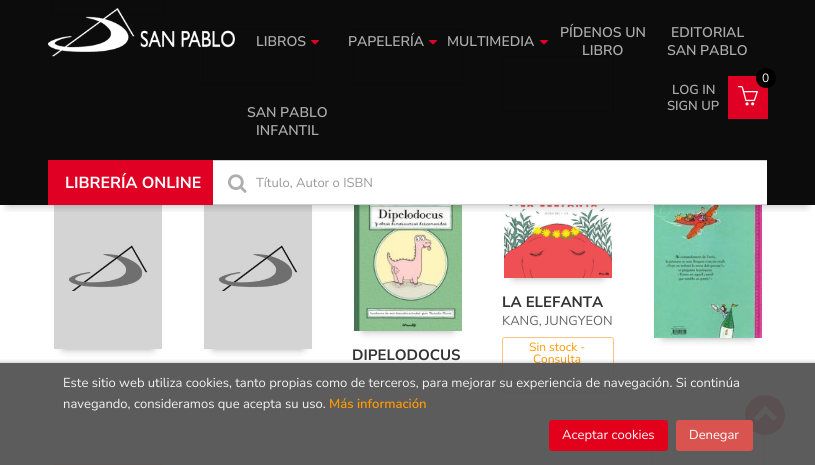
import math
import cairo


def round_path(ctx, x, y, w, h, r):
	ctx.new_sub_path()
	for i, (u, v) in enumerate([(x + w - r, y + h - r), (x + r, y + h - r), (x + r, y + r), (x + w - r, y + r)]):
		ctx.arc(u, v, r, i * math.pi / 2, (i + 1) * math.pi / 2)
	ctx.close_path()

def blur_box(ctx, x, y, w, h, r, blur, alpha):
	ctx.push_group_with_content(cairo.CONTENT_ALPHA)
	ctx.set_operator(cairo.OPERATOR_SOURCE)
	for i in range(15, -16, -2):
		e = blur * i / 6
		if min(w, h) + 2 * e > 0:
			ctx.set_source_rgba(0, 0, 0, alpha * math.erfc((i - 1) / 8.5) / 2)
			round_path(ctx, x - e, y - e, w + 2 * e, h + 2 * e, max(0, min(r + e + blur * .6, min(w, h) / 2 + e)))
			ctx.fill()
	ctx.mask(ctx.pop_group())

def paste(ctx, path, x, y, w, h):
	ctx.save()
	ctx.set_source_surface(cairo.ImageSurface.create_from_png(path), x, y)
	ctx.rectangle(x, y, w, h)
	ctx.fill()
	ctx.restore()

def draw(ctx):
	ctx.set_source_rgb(1, 1, 1)
	ctx.paint()
	round_path(ctx, 52.5, -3.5, 111, 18, 2.5)
	ctx.set_source_rgb(1, 0.761, 0.502)
	ctx.set_line_width(1)
	ctx.stroke()
	round_path(ctx, 202.5, 29.5, 111, 55, 2.5)
	ctx.stroke()
	round_path(ctx, 352.5, 29.5, 111, 55, 2.5)
	ctx.stroke()
	round_path(ctx, 502.5, 56.5, 111, 55, 2.5)
	ctx.stroke()
	ctx.set_source_rgb(0, 0, 0)
	blur_box(ctx, 64, 205, 88, 142, 0, 5, 0.5)
	paste(ctx, 'media/7.png', 54, 205, 108, 144)
	blur_box(ctx, 214, 205, 88, 142, 0, 5, 0.5)
	paste(ctx, 'media/7.png', 204, 205, 108, 144)
	blur_box(ctx, 364, 205, 88, 124, 0, 5, 0.5)
	paste(ctx, 'media/8.png', 354, 205, 108, 126)
	blur_box(ctx, 514, 205, 88, 71, 0, 5, 0.5)
	paste(ctx, 'media/9.png', 504, 205, 108, 73)
	blur_box(ctx, 664, 205, 88, 131, 0, 5, 0.5)
	paste(ctx, 'media/10.png', 654, 205, 108, 133)
	ctx.save()
	ctx.rectangle(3, 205, 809, 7)
	ctx.clip()
	blur_box(ctx, 8, 16, 799, 189, 0, 5, 0.3)
	ctx.restore()
	ctx.set_source_rgba(0, 0, 0, 0.95)
	ctx.rectangle(0, 0, 815, 205)
	ctx.fill()
	paste(ctx, 'media/1.png', 48, 8, 187, 49)
	ctx.select_font_face('Nunito Sans SemiBold')
	ctx.set_font_size(14)
	ctx.set_source_rgb(0.675, 0.675, 0.675)
	ctx.move_to(256, 46)
	ctx.show_text('LIBROS')
	paste(ctx, 'media/2.png', 311, 40, 8, 5)
	ctx.move_to(348, 46)
	ctx.show_text('PAPELERÍA')
	paste(ctx, 'media/3.png', 429, 40, 8, 5)
	ctx.move_to(447, 46)
	ctx.show_text('MULTIMEDIA')
	paste(ctx, 'media/4.png', 540, 40, 8, 5)
	for x, y, s in [
		(560, 37, 'PÍDENOS UN'),
		(582, 55, 'LIBRO'),
		(671, 37, 'EDITORIAL'),
		(667, 55, 'SAN PABLO'),
		(247, 117, 'SAN PABLO'),
		(256, 135, 'INFANTIL'),
	]:
		ctx.move_to(x, y)
		ctx.show_text(s)
	ctx.set_source_rgb(0.875, 0, 0.141)
	ctx.rectangle(728, 76, 40, 43)
	ctx.fill()
	paste(ctx, 'media/5.png', 738, 86, 20, 20)
	ctx.set_source_rgb(0, 0, 0)
	ctx.arc(766, 78, 10, 0, 2 * math.pi)
	ctx.fill()
	ctx.select_font_face('Nunito Sans')
	ctx.set_font_size(12)
	ctx.set_source_rgb(1, 1, 1)
	ctx.move_to(762, 82)
	ctx.show_text('0')
	ctx.select_font_face('Nunito Sans SemiBold')
	ctx.set_font_size(13)
	ctx.set_source_rgb(0.675, 0.675, 0.675)
	ctx.move_to(672, 94)
	ctx.show_text('LOG IN')
	ctx.move_to(667, 110)
	ctx.show_text('SIGN UP')
	ctx.set_source_rgb(0.875, 0, 0.141)
	ctx.rectangle(48, 160, 165, 45)
	ctx.fill()
	ctx.select_font_face('Nunito Sans', cairo.FONT_SLANT_NORMAL, cairo.FONT_WEIGHT_BOLD)
	ctx.set_font_size(16)
	ctx.set_source_rgb(1, 1, 1)
	ctx.move_to(65, 188)
	ctx.show_text('LIBRERÍA ONLINE')
	ctx.rectangle(213, 161, 554, 43)
	ctx.fill()
	paste(ctx, 'media/6.png', 228, 174, 19, 19)
	ctx.set_source_rgb(0.816, 0.816, 0.816)
	ctx.rectangle(213, 160, 554, 1)
	ctx.fill()
	ctx.rectangle(213, 204, 554, 1)
	ctx.fill()
	ctx.select_font_face('Nunito Sans')
	ctx.set_font_size(13)
	ctx.set_source_rgb(0.6, 0.6, 0.6)
	ctx.move_to(256, 187)
	ctx.show_text('Título, Autor o ISBN')
	round_path(ctx, 52.5, 464.5, 111, 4, 2.5)
	ctx.set_source_rgb(1, 0.761, 0.502)
	ctx.stroke()
	ctx.select_font_face('Nunito Sans', cairo.FONT_SLANT_NORMAL, cairo.FONT_WEIGHT_BOLD)
	ctx.set_font_size(15)
	ctx.set_source_rgb(0.2, 0.2, 0.2)
	ctx.move_to(352, 360)
	ctx.show_text('DIPELODOCUS')
	ctx.move_to(502, 307)
	ctx.show_text('LA ELEFANTA')
	ctx.select_font_face('Nunito Sans')
	ctx.set_font_size(13)
	ctx.set_source_rgb(0.4, 0.4, 0.4)
	ctx.move_to(502, 325)
	ctx.show_text('KANG, JUNGYEON')
	round_path(ctx, 502.5, 337.5, 111, 55, 2.5)
	ctx.set_source_rgb(1, 0.761, 0.502)
	ctx.stroke()
	ctx.set_font_size(12)
	ctx.set_source_rgb(1, 0.6, 0)
	ctx.move_to(529, 351)
	ctx.show_text('Sin stock -')
	ctx.move_to(533, 363)
	ctx.show_text('Consulta')
	round_path(ctx, 652.5, 433.5, 111, 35, 2.5)
	ctx.set_source_rgb(1, 0.761, 0.502)
	ctx.stroke()
	ctx.set_source_rgb(0.89, 0, 0.106)
	ctx.arc(765, 415, 20, 0, 2 * math.pi)
	ctx.fill()
	paste(ctx, 'media/11.png', 754, 406, 23, 15)
	ctx.save()
	ctx.rectangle(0, 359, 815, 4)
	ctx.clip()
	ctx.set_source_rgb(0, 0, 0)
	blur_box(ctx, 0, 363, 815, 102, 0, 2.5, 0.3)
	ctx.restore()
	ctx.set_source_rgba(0.333, 0.333, 0.333, 0.95)
	ctx.rectangle(0, 363, 815, 102)
	ctx.fill()
	ctx.set_font_size(13)
	ctx.set_source_rgb(0.949, 0.949, 0.949)
	ctx.move_to(63, 387)
	ctx.show_text('Este sitio web utiliza cookies, tanto propias como de terceros, para mejorar su experiencia de navegación. Si continúa')
	ctx.move_to(63, 408)
	ctx.show_text('navegando, consideramos que acepta su uso.')
	ctx.select_font_face('Nunito Sans SemiBold')
	ctx.set_source_rgb(1, 0.6, 0)
	ctx.move_to(329, 408)
	ctx.show_text('Más información')
	ctx.set_source_rgb(0.89, 0, 0.106)
	round_path(ctx, 549.5, 420.5, 118, 30, 2.5)
	ctx.fill_preserve()
	ctx.stroke()
	ctx.select_font_face('Nunito Sans')
	ctx.set_source_rgb(1, 1, 1)
	ctx.move_to(562, 439)
	ctx.show_text('Aceptar cookies')
	ctx.set_source_rgb(0.851, 0.325, 0.31)
	round_path(ctx, 676.5, 420.5, 76, 30, 2.5)
	ctx.fill_preserve()
	ctx.stroke()
	ctx.set_source_rgb(1, 1, 1)
	ctx.move_to(689, 439)
	ctx.show_text('Denegar')


surface = cairo.ImageSurface(cairo.FORMAT_RGB24, 815, 465)
ctx = cairo.Context(surface)
options = cairo.FontOptions()
options.set_hint_metrics(cairo.HINT_METRICS_OFF)
options.set_hint_style(cairo.HINT_STYLE_NONE)
ctx.set_font_options(options)
ctx.set_miter_limit(4)
draw(ctx)
surface.write_to_png('image.png')
